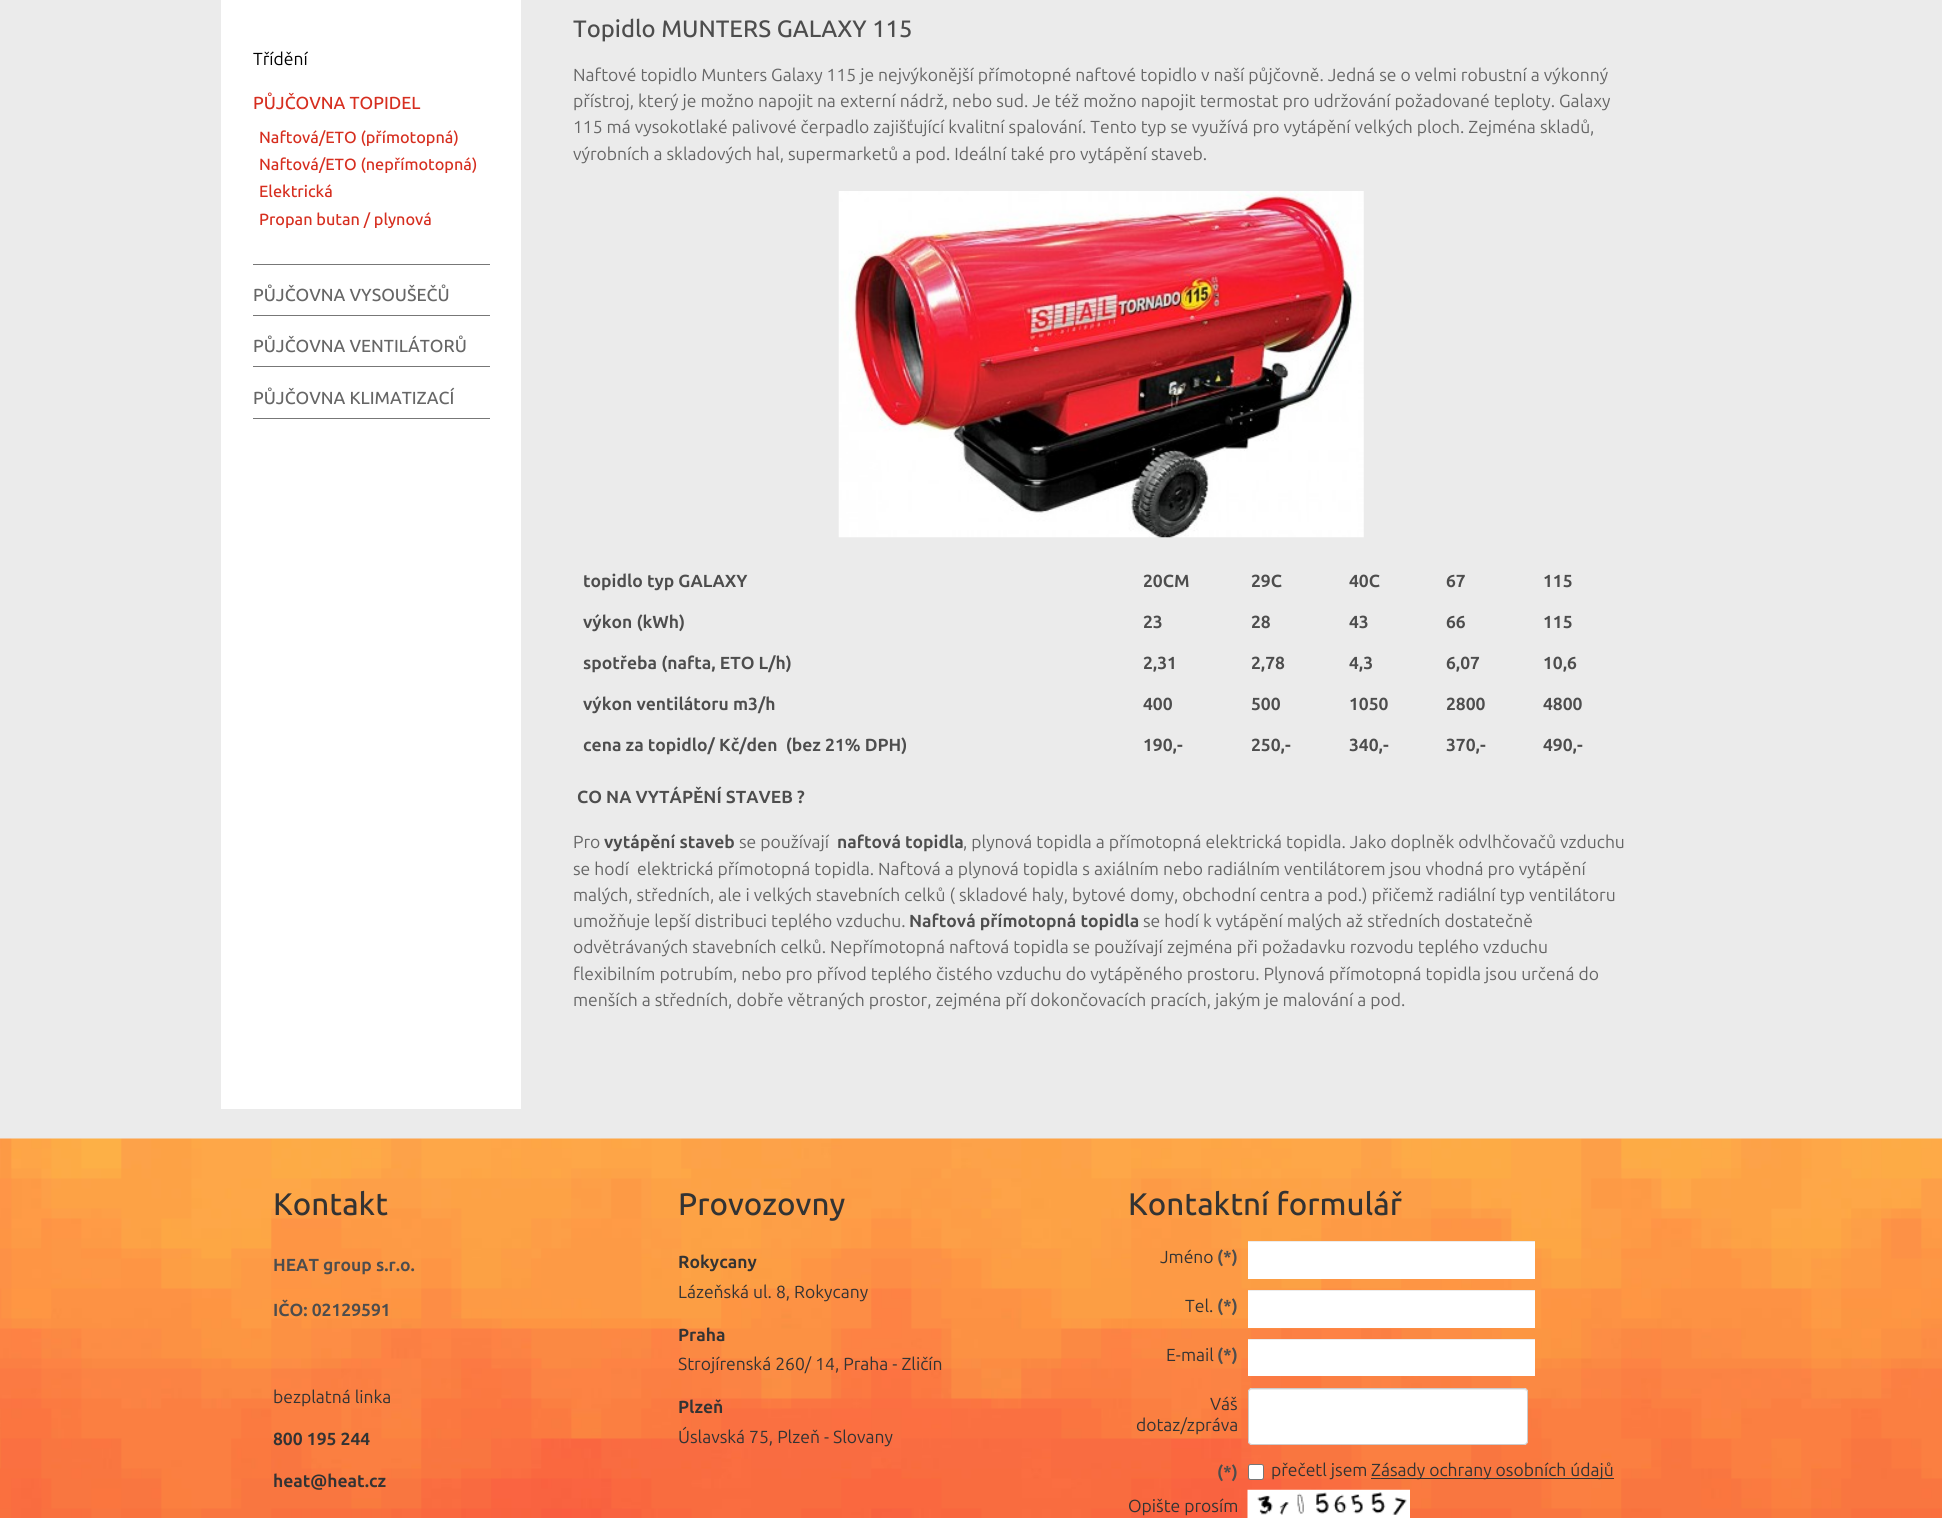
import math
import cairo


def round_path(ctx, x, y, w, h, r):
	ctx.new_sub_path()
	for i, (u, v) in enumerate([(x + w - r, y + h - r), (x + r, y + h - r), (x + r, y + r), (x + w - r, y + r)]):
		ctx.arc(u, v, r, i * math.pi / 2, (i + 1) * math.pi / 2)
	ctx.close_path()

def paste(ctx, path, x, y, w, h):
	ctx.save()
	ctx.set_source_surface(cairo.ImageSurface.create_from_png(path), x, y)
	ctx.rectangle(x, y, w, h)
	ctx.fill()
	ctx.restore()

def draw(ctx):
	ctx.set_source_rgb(0.918, 0.918, 0.918)
	ctx.paint()
	ctx.set_source_rgb(1, 1, 1)
	ctx.rectangle(221, 0, 300, 1109)
	ctx.fill()
	ctx.select_font_face('Ubuntu')
	ctx.set_font_size(17.5)
	ctx.set_source_rgb(0, 0, 0)
	ctx.move_to(253, 65)
	ctx.show_text('Třídění')
	ctx.set_source_rgb(0.467, 0.467, 0.467)
	ctx.rectangle(253, 264, 237, 1)
	ctx.fill()
	ctx.select_font_face('Ubuntu Medium')
	ctx.set_source_rgb(0.839, 0.18, 0.122)
	ctx.move_to(253, 109)
	ctx.show_text('PŮJČOVNA TOPIDEL')
	ctx.set_font_size(16.25)
	for x, y, s in [
		(259, 143, 'Naftová/ETO (přímotopná)'),
		(259, 170, 'Naftová/ETO (nepřímotopná)'),
		(259, 197, 'Elektrická'),
		(259, 225, 'Propan butan / plynová'),
	]:
		ctx.move_to(x, y)
		ctx.show_text(s)
	ctx.set_source_rgb(0.467, 0.467, 0.467)
	ctx.rectangle(253, 315, 237, 1)
	ctx.fill()
	ctx.set_font_size(17.5)
	ctx.set_source_rgb(0.4, 0.4, 0.4)
	ctx.move_to(253, 301)
	ctx.show_text('PŮJČOVNA VYSOUŠEČŮ')
	ctx.set_source_rgb(0.467, 0.467, 0.467)
	ctx.rectangle(253, 366, 237, 1)
	ctx.fill()
	ctx.set_source_rgb(0.4, 0.4, 0.4)
	ctx.move_to(253, 352)
	ctx.show_text('PŮJČOVNA VENTILÁTORŮ')
	ctx.set_source_rgb(0.467, 0.467, 0.467)
	ctx.rectangle(253, 418, 237, 1)
	ctx.fill()
	ctx.set_source_rgb(0.4, 0.4, 0.4)
	ctx.move_to(253, 404)
	ctx.show_text('PŮJČOVNA KLIMATIZACÍ')
	ctx.set_font_size(23.75)
	ctx.set_source_rgb(0.302, 0.302, 0.302)
	ctx.move_to(573, 37)
	ctx.show_text('Topidlo MUNTERS GALAXY 115')
	ctx.select_font_face('Ubuntu')
	ctx.set_font_size(17.5)
	ctx.set_source_rgb(0.4, 0.4, 0.4)
	for x, y, s in [
		(573, 81, 'Naftové topidlo Munters Galaxy 115 je nejvýkonější přímotopné naftové topidlo v naší půjčovně. Jedná se o velmi robustní a výkonný'),
		(573, 107, 'přístroj, který je možno napojit na externí nádrž, nebo sud. Je též možno napojit termostat pro udržování požadované teploty. Galaxy'),
		(573, 133, '115 má vysokotlaké palivové čerpadlo zajišťující kvalitní spalování. Tento typ se využívá pro vytápění velkých ploch. Zejména skladů,'),
		(573, 160, 'výrobních a skladových hal, supermarketů a pod. Ideální také pro vytápění staveb.'),
	]:
		ctx.move_to(x, y)
		ctx.show_text(s)
	paste(ctx, 'media/1.png', 838, 191, 526, 347)
	ctx.select_font_face('Ubuntu', cairo.FONT_SLANT_NORMAL, cairo.FONT_WEIGHT_BOLD)
	ctx.set_source_rgb(0.302, 0.302, 0.302)
	for x, y, s in [
		(583, 587, 'topidlo typ GALAXY'),
		(1143, 587, '20CM'),
		(1251, 587, '29C'),
		(1349, 587, '40C'),
		(1446, 587, '67'),
		(1543, 587, '115'),
		(583, 628, 'výkon (kWh)'),
		(1143, 628, '23'),
		(1251, 628, '28'),
		(1349, 628, '43'),
		(1446, 628, '66'),
		(1543, 628, '115'),
		(583, 669, 'spotřeba (nafta, ETO L/h)'),
		(1143, 669, '2,31'),
		(1251, 669, '2,78'),
		(1349, 669, '4,3'),
		(1446, 669, '6,07'),
		(1543, 669, '10,6'),
		(583, 710, 'výkon ventilátoru m3/h'),
		(1143, 710, '400'),
		(1251, 710, '500'),
		(1349, 710, '1050'),
		(1446, 710, '2800'),
		(1543, 710, '4800'),
		(583, 751, 'cena za topidlo/ Kč/den  (bez 21% DPH)'),
		(1143, 751, '190,-'),
		(1251, 751, '250,-'),
		(1349, 751, '340,-'),
		(1446, 751, '370,-'),
		(1543, 751, '490,-'),
		(577, 803, 'CO NA VYTÁPĚNÍ STAVEB ?'),
	]:
		ctx.move_to(x, y)
		ctx.show_text(s)
	ctx.select_font_face('Ubuntu')
	ctx.set_source_rgb(0.4, 0.4, 0.4)
	ctx.move_to(573, 848)
	ctx.show_text('Pro')
	ctx.select_font_face('Ubuntu', cairo.FONT_SLANT_NORMAL, cairo.FONT_WEIGHT_BOLD)
	ctx.set_source_rgb(0.302, 0.302, 0.302)
	ctx.move_to(604, 848)
	ctx.show_text('vytápění staveb')
	ctx.select_font_face('Ubuntu')
	ctx.set_source_rgb(0.4, 0.4, 0.4)
	ctx.move_to(739, 848)
	ctx.show_text('se používají')
	ctx.select_font_face('Ubuntu', cairo.FONT_SLANT_NORMAL, cairo.FONT_WEIGHT_BOLD)
	ctx.set_source_rgb(0.302, 0.302, 0.302)
	ctx.move_to(837, 848)
	ctx.show_text('naftová topidla')
	ctx.select_font_face('Ubuntu')
	ctx.set_source_rgb(0.4, 0.4, 0.4)
	for x, y, s in [
		(963, 848, ', plynová topidla a přímotopná elektrická topidla. Jako doplněk odvlhčovačů vzduchu'),
		(573, 875, 'se hodí  elektrická přímotopná topidla. Naftová a plynová topidla s axiálním nebo radiálním ventilátorem jsou vhodná pro vytápění'),
		(573, 901, 'malých, středních, ale i velkých stavebních celků ( skladové haly, bytové domy, obchodní centra a pod.) přičemž radiální typ ventilátoru'),
		(573, 927, 'umožňuje lepší distribuci teplého vzduchu.'),
	]:
		ctx.move_to(x, y)
		ctx.show_text(s)
	ctx.select_font_face('Ubuntu', cairo.FONT_SLANT_NORMAL, cairo.FONT_WEIGHT_BOLD)
	ctx.set_source_rgb(0.302, 0.302, 0.302)
	ctx.move_to(909, 927)
	ctx.show_text('Naftová přímotopná topidla')
	ctx.select_font_face('Ubuntu')
	ctx.set_source_rgb(0.4, 0.4, 0.4)
	for x, y, s in [
		(1143, 927, 'se hodí k vytápění malých až středních dostatečně'),
		(573, 953, 'odvětrávaných stavebních celků. Nepřímotopná naftová topidla se používají zejména při požadavku rozvodu teplého vzduchu'),
		(573, 980, 'flexibilním potrubím, nebo pro přívod teplého čistého vzduchu do vytápěného prostoru. Plynová přímotopná topidla jsou určená do'),
		(573, 1006, 'menších a středních, dobře větraných prostor, zejména pří dokončovacích pracích, jakým je malování a pod.'),
	]:
		ctx.move_to(x, y)
		ctx.show_text(s)
	paste(ctx, 'media/2.png', 0, 1138, 1942, 380)
	ctx.select_font_face('Ubuntu Medium')
	ctx.set_font_size(31.25)
	ctx.set_source_rgb(0.2, 0.2, 0.2)
	ctx.move_to(273, 1215)
	ctx.show_text('Kontakt')
	ctx.select_font_face('Ubuntu', cairo.FONT_SLANT_NORMAL, cairo.FONT_WEIGHT_BOLD)
	ctx.set_font_size(17.5)
	ctx.set_source_rgb(0.302, 0.302, 0.302)
	ctx.move_to(273, 1271)
	ctx.show_text('HEAT group s.r.o.')
	ctx.move_to(273, 1316)
	ctx.show_text('IČO: 02129591')
	ctx.select_font_face('Ubuntu')
	ctx.set_source_rgb(0.2, 0.2, 0.2)
	ctx.move_to(273, 1403)
	ctx.show_text('bezplatná linka')
	ctx.select_font_face('Ubuntu', cairo.FONT_SLANT_NORMAL, cairo.FONT_WEIGHT_BOLD)
	ctx.move_to(273, 1445)
	ctx.show_text('800 195 244')
	ctx.move_to(273, 1487)
	ctx.show_text('heat@heat.cz')
	ctx.select_font_face('Ubuntu Medium')
	ctx.set_font_size(31.25)
	ctx.move_to(678, 1215)
	ctx.show_text('Provozovny')
	ctx.select_font_face('Ubuntu', cairo.FONT_SLANT_NORMAL, cairo.FONT_WEIGHT_BOLD)
	ctx.set_font_size(17.5)
	ctx.move_to(678, 1268)
	ctx.show_text('Rokycany')
	ctx.select_font_face('Ubuntu')
	ctx.move_to(678, 1298)
	ctx.show_text('Lázeňská ul. 8, Rokycany')
	ctx.select_font_face('Ubuntu', cairo.FONT_SLANT_NORMAL, cairo.FONT_WEIGHT_BOLD)
	ctx.move_to(678, 1341)
	ctx.show_text('Praha')
	ctx.select_font_face('Ubuntu')
	ctx.move_to(678, 1370)
	ctx.show_text('Strojírenská 260/ 14, Praha - Zličín')
	ctx.select_font_face('Ubuntu', cairo.FONT_SLANT_NORMAL, cairo.FONT_WEIGHT_BOLD)
	ctx.move_to(678, 1413)
	ctx.show_text('Plzeň')
	ctx.select_font_face('Ubuntu')
	ctx.move_to(678, 1443)
	ctx.show_text('Úslavská 75, Plzeň - Slovany')
	ctx.select_font_face('Ubuntu Medium')
	ctx.set_font_size(31.25)
	ctx.move_to(1128, 1215)
	ctx.show_text('Kontaktní formulář')
	ctx.select_font_face('Ubuntu')
	ctx.set_font_size(17.5)
	ctx.move_to(1160, 1263)
	ctx.show_text('Jméno')
	ctx.select_font_face('Ubuntu', cairo.FONT_SLANT_NORMAL, cairo.FONT_WEIGHT_BOLD)
	ctx.set_source_rgb(0.302, 0.302, 0.302)
	ctx.move_to(1217, 1263)
	ctx.show_text('(*)')
	ctx.set_source_rgb(1, 1, 1)
	ctx.rectangle(1248, 1242, 287, 37)
	ctx.fill()
	ctx.set_source_rgb(0.925, 0.925, 0.925)
	ctx.rectangle(1248, 1241, 287, 1)
	ctx.fill()
	ctx.select_font_face('Ubuntu')
	ctx.set_source_rgb(0.2, 0.2, 0.2)
	ctx.move_to(1185, 1312)
	ctx.show_text('Tel.')
	ctx.select_font_face('Ubuntu', cairo.FONT_SLANT_NORMAL, cairo.FONT_WEIGHT_BOLD)
	ctx.set_source_rgb(0.302, 0.302, 0.302)
	ctx.move_to(1217, 1312)
	ctx.show_text('(*)')
	ctx.set_source_rgb(1, 1, 1)
	ctx.rectangle(1248, 1291, 287, 37)
	ctx.fill()
	ctx.set_source_rgb(0.925, 0.925, 0.925)
	ctx.rectangle(1248, 1290, 287, 1)
	ctx.fill()
	ctx.select_font_face('Ubuntu')
	ctx.set_source_rgb(0.2, 0.2, 0.2)
	ctx.move_to(1166, 1361)
	ctx.show_text('E-mail')
	ctx.select_font_face('Ubuntu', cairo.FONT_SLANT_NORMAL, cairo.FONT_WEIGHT_BOLD)
	ctx.set_source_rgb(0.302, 0.302, 0.302)
	ctx.move_to(1217, 1361)
	ctx.show_text('(*)')
	ctx.set_source_rgb(1, 1, 1)
	ctx.rectangle(1248, 1340, 287, 36)
	ctx.fill()
	ctx.set_source_rgb(0.925, 0.925, 0.925)
	ctx.rectangle(1248, 1339, 287, 1)
	ctx.fill()
	ctx.select_font_face('Ubuntu')
	ctx.set_source_rgb(0.2, 0.2, 0.2)
	ctx.move_to(1210, 1410)
	ctx.show_text('Váš')
	ctx.move_to(1136, 1431)
	ctx.show_text('dotaz/zpráva')
	ctx.set_source_rgb(1, 1, 1)
	round_path(ctx, 1248, 1388, 280, 57, 4)
	ctx.fill()
	ctx.set_source_rgb(0.925, 0.925, 0.925)
	ctx.new_path()
	ctx.move_to(1251, 1390)
	ctx.line_to(1524, 1390)
	ctx.curve_to(1525, 1390, 1526, 1391, 1526, 1392)
	ctx.curve_to(1526, 1390, 1525, 1389, 1524, 1389)
	ctx.line_to(1252, 1389)
	ctx.curve_to(1250, 1389, 1249, 1390, 1249, 1392)
	ctx.curve_to(1249, 1391, 1250, 1390, 1251, 1390)
	ctx.close_path()
	ctx.fill()
	round_path(ctx, 1248.5, 1388.5, 279, 56, 3.5)
	ctx.set_source_rgb(0.8, 0.8, 0.8)
	ctx.set_line_width(1)
	ctx.stroke()
	ctx.select_font_face('Ubuntu', cairo.FONT_SLANT_NORMAL, cairo.FONT_WEIGHT_BOLD)
	ctx.set_source_rgb(0.302, 0.302, 0.302)
	ctx.move_to(1217, 1478)
	ctx.show_text('(*)')
	ctx.set_source_rgb(1, 1, 1)
	round_path(ctx, 1248.5, 1464.5, 15, 15, 2)
	ctx.fill_preserve()
	ctx.set_source_rgb(0.463, 0.463, 0.463)
	ctx.stroke()
	ctx.select_font_face('Ubuntu')
	ctx.set_source_rgb(0.2, 0.2, 0.2)
	ctx.move_to(1271, 1476)
	ctx.show_text('přečetl jsem')
	ctx.rectangle(1371, 1478, 243, 1)
	ctx.fill()
	ctx.move_to(1371, 1476)
	ctx.show_text('Zásady ochrany osobních údajů')
	ctx.move_to(1128, 1512)
	ctx.show_text('Opište prosím')
	paste(ctx, 'media/3.png', 1247, 1489, 163, 29)


surface = cairo.ImageSurface(cairo.FORMAT_RGB24, 1942, 1518)
ctx = cairo.Context(surface)
options = cairo.FontOptions()
options.set_hint_metrics(cairo.HINT_METRICS_OFF)
options.set_hint_style(cairo.HINT_STYLE_NONE)
ctx.set_font_options(options)
ctx.set_miter_limit(4)
draw(ctx)
surface.write_to_png('image.png')
